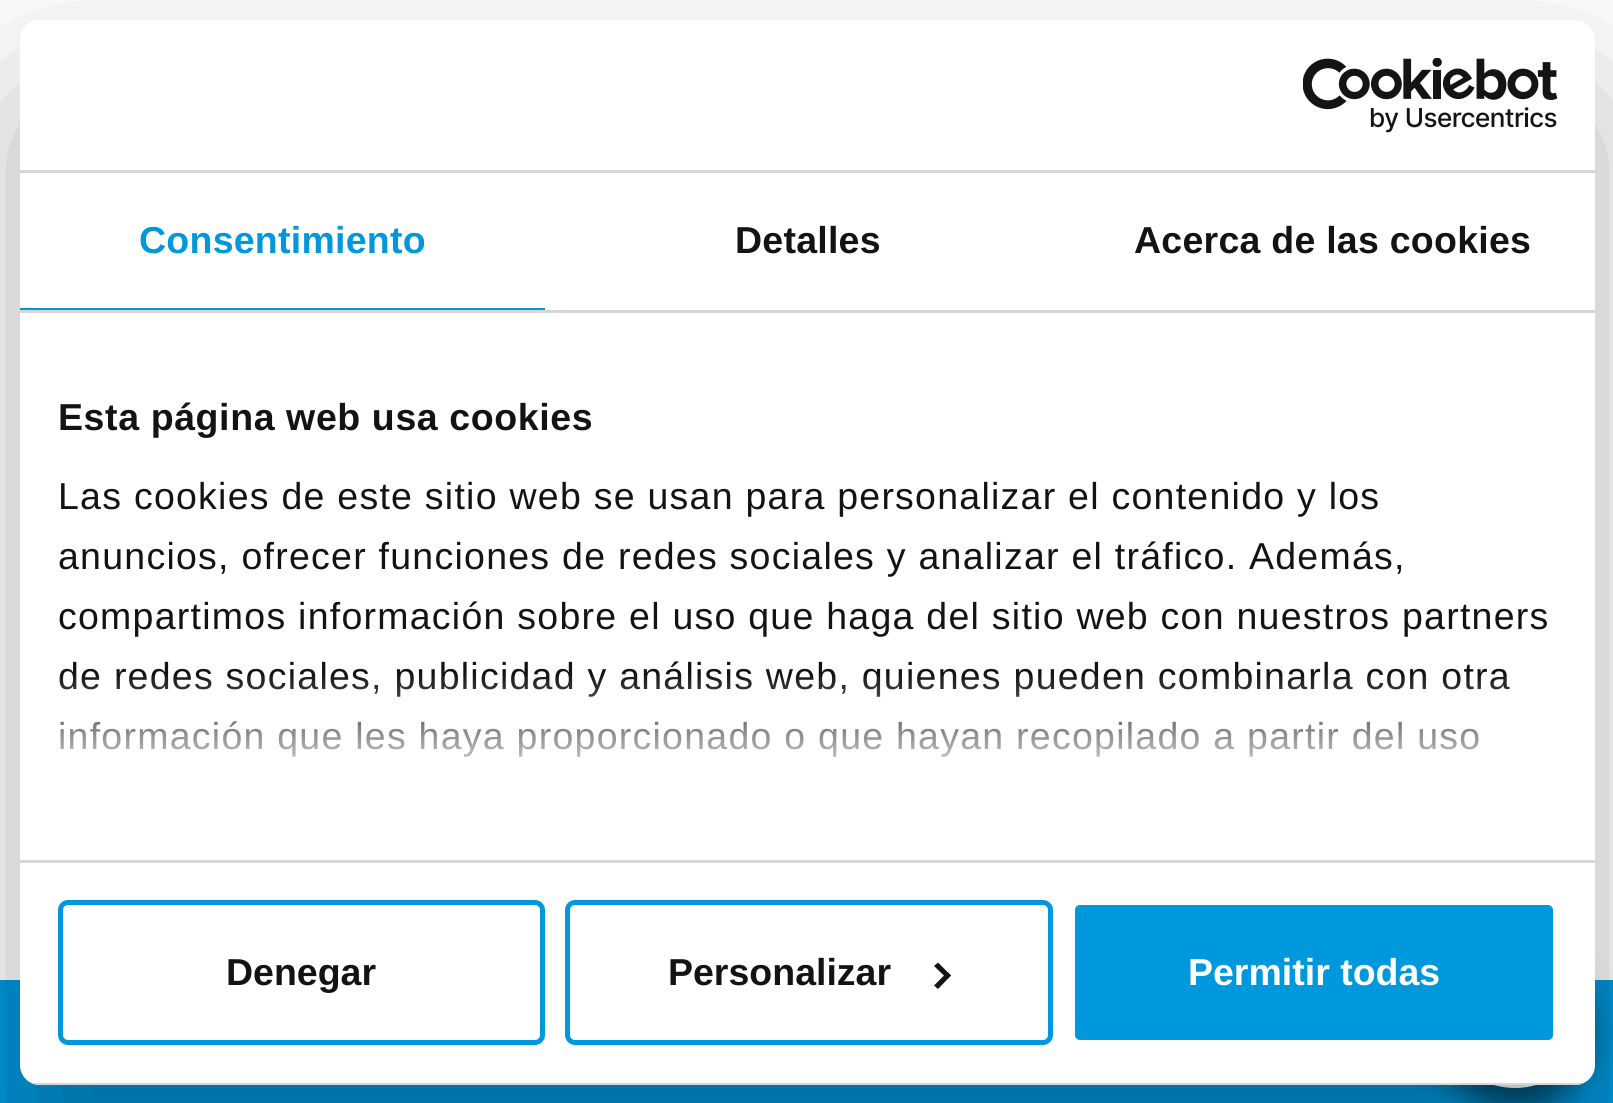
import math
import cairo


def write_spaced(ctx, x, y, s, letter, word):
	ctx.move_to(x, y)
	for ch in s:
		ctx.show_text(ch)
		ctx.rel_move_to(letter + word * (ch == ' '), 0)

def round_path(ctx, x, y, w, h, r):
	ctx.new_sub_path()
	for i, (u, v) in enumerate([(x + w - r, y + h - r), (x + r, y + h - r), (x + r, y + r), (x + w - r, y + r)]):
		ctx.arc(u, v, r, i * math.pi / 2, (i + 1) * math.pi / 2)
	ctx.close_path()

def blur_box(ctx, x, y, w, h, r, blur, alpha):
	ctx.push_group_with_content(cairo.CONTENT_ALPHA)
	ctx.set_operator(cairo.OPERATOR_SOURCE)
	for i in range(15, -16, -2):
		e = blur * i / 6
		if min(w, h) + 2 * e > 0:
			ctx.set_source_rgba(0, 0, 0, alpha * math.erfc((i - 1) / 8.5) / 2)
			round_path(ctx, x - e, y - e, w + 2 * e, h + 2 * e, max(0, min(r + e + blur * .6, min(w, h) / 2 + e)))
			ctx.fill()
	ctx.mask(ctx.pop_group())

def paste(ctx, path, x, y, w, h):
	ctx.save()
	ctx.set_source_surface(cairo.ImageSurface.create_from_png(path), x, y)
	ctx.rectangle(x, y, w, h)
	ctx.fill()
	ctx.restore()

def draw(ctx):
	ctx.set_source_rgb(1, 1, 1)
	ctx.paint()
	ctx.set_source_rgb(0, 0.596, 0.867)
	ctx.rectangle(0, 980, 1613, 123)
	ctx.fill()
	ctx.set_source_rgb(0, 0, 0)
	blur_box(ctx, 1440, 958, 150, 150, 75, 15, 0.5)
	ctx.set_source_rgb(1, 1, 1)
	ctx.arc(1515, 1013, 75, 0, 2 * math.pi)
	ctx.fill()
	ctx.set_source_rgb(0, 0, 0)
	blur_box(ctx, 20, 100, 1575, 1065, 20, 85, 0.3)
	ctx.set_source_rgb(1, 1, 1)
	round_path(ctx, 20, 20, 1575, 1065, 20)
	ctx.fill()
	ctx.set_source_rgb(0.839, 0.839, 0.839)
	ctx.rectangle(20, 170, 1575, 3)
	ctx.fill()
	paste(ctx, 'media/1.png', 1303, 58, 255, 75)
	ctx.rectangle(20, 310, 1575, 3)
	ctx.fill()
	ctx.set_source_rgb(0, 0.596, 0.867)
	ctx.rectangle(20, 308, 525, 2)
	ctx.fill()
	ctx.select_font_face('Liberation Sans', cairo.FONT_SLANT_NORMAL, cairo.FONT_WEIGHT_BOLD)
	ctx.set_font_size(37.5)
	write_spaced(ctx, 139, 253, 'Consentimiento', 0.25, 0)
	ctx.set_source_rgb(0.078, 0.078, 0.078)
	write_spaced(ctx, 735, 253, 'Detalles', 0.25, 0)
	write_spaced(ctx, 1134, 253, 'Acerca de las cookies', 0.25, 0)
	ctx.set_source_rgb(0.839, 0.839, 0.839)
	ctx.rectangle(20, 860, 1575, 3)
	ctx.fill()
	ctx.set_source_rgb(0.078, 0.078, 0.078)
	write_spaced(ctx, 58, 430, 'Esta página web usa cookies', 0.6, 0)
	ctx.select_font_face('Liberation Sans')
	for x, y, s in [
		(58, 509, 'Las cookies de este sitio web se usan para personalizar el contenido y los'),
		(58, 569, 'anuncios, ofrecer funciones de redes sociales y analizar el tráfico. Además,'),
		(58, 629, 'compartimos información sobre el uso que haga del sitio web con nuestros partners'),
		(58, 689, 'de redes sociales, publicidad y análisis web, quienes pueden combinarla con otra'),
		(58, 749, 'información que les haya proporcionado o que hayan recopilado a partir del uso'),
	]:
		write_spaced(ctx, x, y, s, 1.25, 0)
	gradient = cairo.LinearGradient(791, 860, 791, 673)
	gradient.add_color_stop_rgba(0, 1, 1, 1, 1)
	gradient.add_color_stop_rgba(0.5, 1, 1, 1, 0.8)
	gradient.add_color_stop_rgba(1, 1, 1, 1, 0)
	ctx.set_source(gradient)
	ctx.rectangle(59, 676, 1451, 81)
	ctx.fill()
	ctx.save()
	round_path(ctx, 20, 20, 1575, 1065, 20)
	ctx.clip()
	ctx.set_source_rgb(0.839, 0.839, 0.839)
	ctx.rectangle(31, 1083, 1553, 2)
	ctx.fill()
	ctx.restore()
	round_path(ctx, 60.5, 902.5, 482, 140, 7.5)
	ctx.set_source_rgb(0, 0.596, 0.867)
	ctx.set_line_width(5)
	ctx.stroke()
	ctx.select_font_face('Liberation Sans', cairo.FONT_SLANT_NORMAL, cairo.FONT_WEIGHT_BOLD)
	ctx.set_source_rgb(0.078, 0.078, 0.078)
	ctx.move_to(226, 985)
	ctx.show_text('Denegar')
	round_path(ctx, 567.5, 902.5, 483, 140, 7.5)
	ctx.set_source_rgb(0, 0.596, 0.867)
	ctx.stroke()
	ctx.set_source_rgb(0.078, 0.078, 0.078)
	ctx.move_to(668, 985)
	ctx.show_text('Personalizar')
	ctx.new_path()
	ctx.move_to(938, 962.5)
	ctx.line_to(951, 975.5)
	ctx.line_to(947.5, 979)
	ctx.line_to(934, 966)
	ctx.close_path()
	ctx.fill()
	ctx.new_path()
	ctx.move_to(947.5, 972)
	ctx.line_to(951, 975.5)
	ctx.line_to(938, 989)
	ctx.line_to(934, 985.5)
	ctx.close_path()
	ctx.fill()
	ctx.set_source_rgb(0, 0.596, 0.867)
	round_path(ctx, 1072.5, 902.5, 483, 140, 7.5)
	ctx.fill_preserve()
	ctx.set_source_rgb(1, 1, 1)
	ctx.stroke()
	ctx.move_to(1188, 985)
	ctx.show_text('Permitir todas')


surface = cairo.ImageSurface(cairo.FORMAT_RGB24, 1613, 1103)
ctx = cairo.Context(surface)
options = cairo.FontOptions()
options.set_hint_metrics(cairo.HINT_METRICS_OFF)
options.set_hint_style(cairo.HINT_STYLE_NONE)
ctx.set_font_options(options)
ctx.set_miter_limit(4)
draw(ctx)
surface.write_to_png('image.png')
